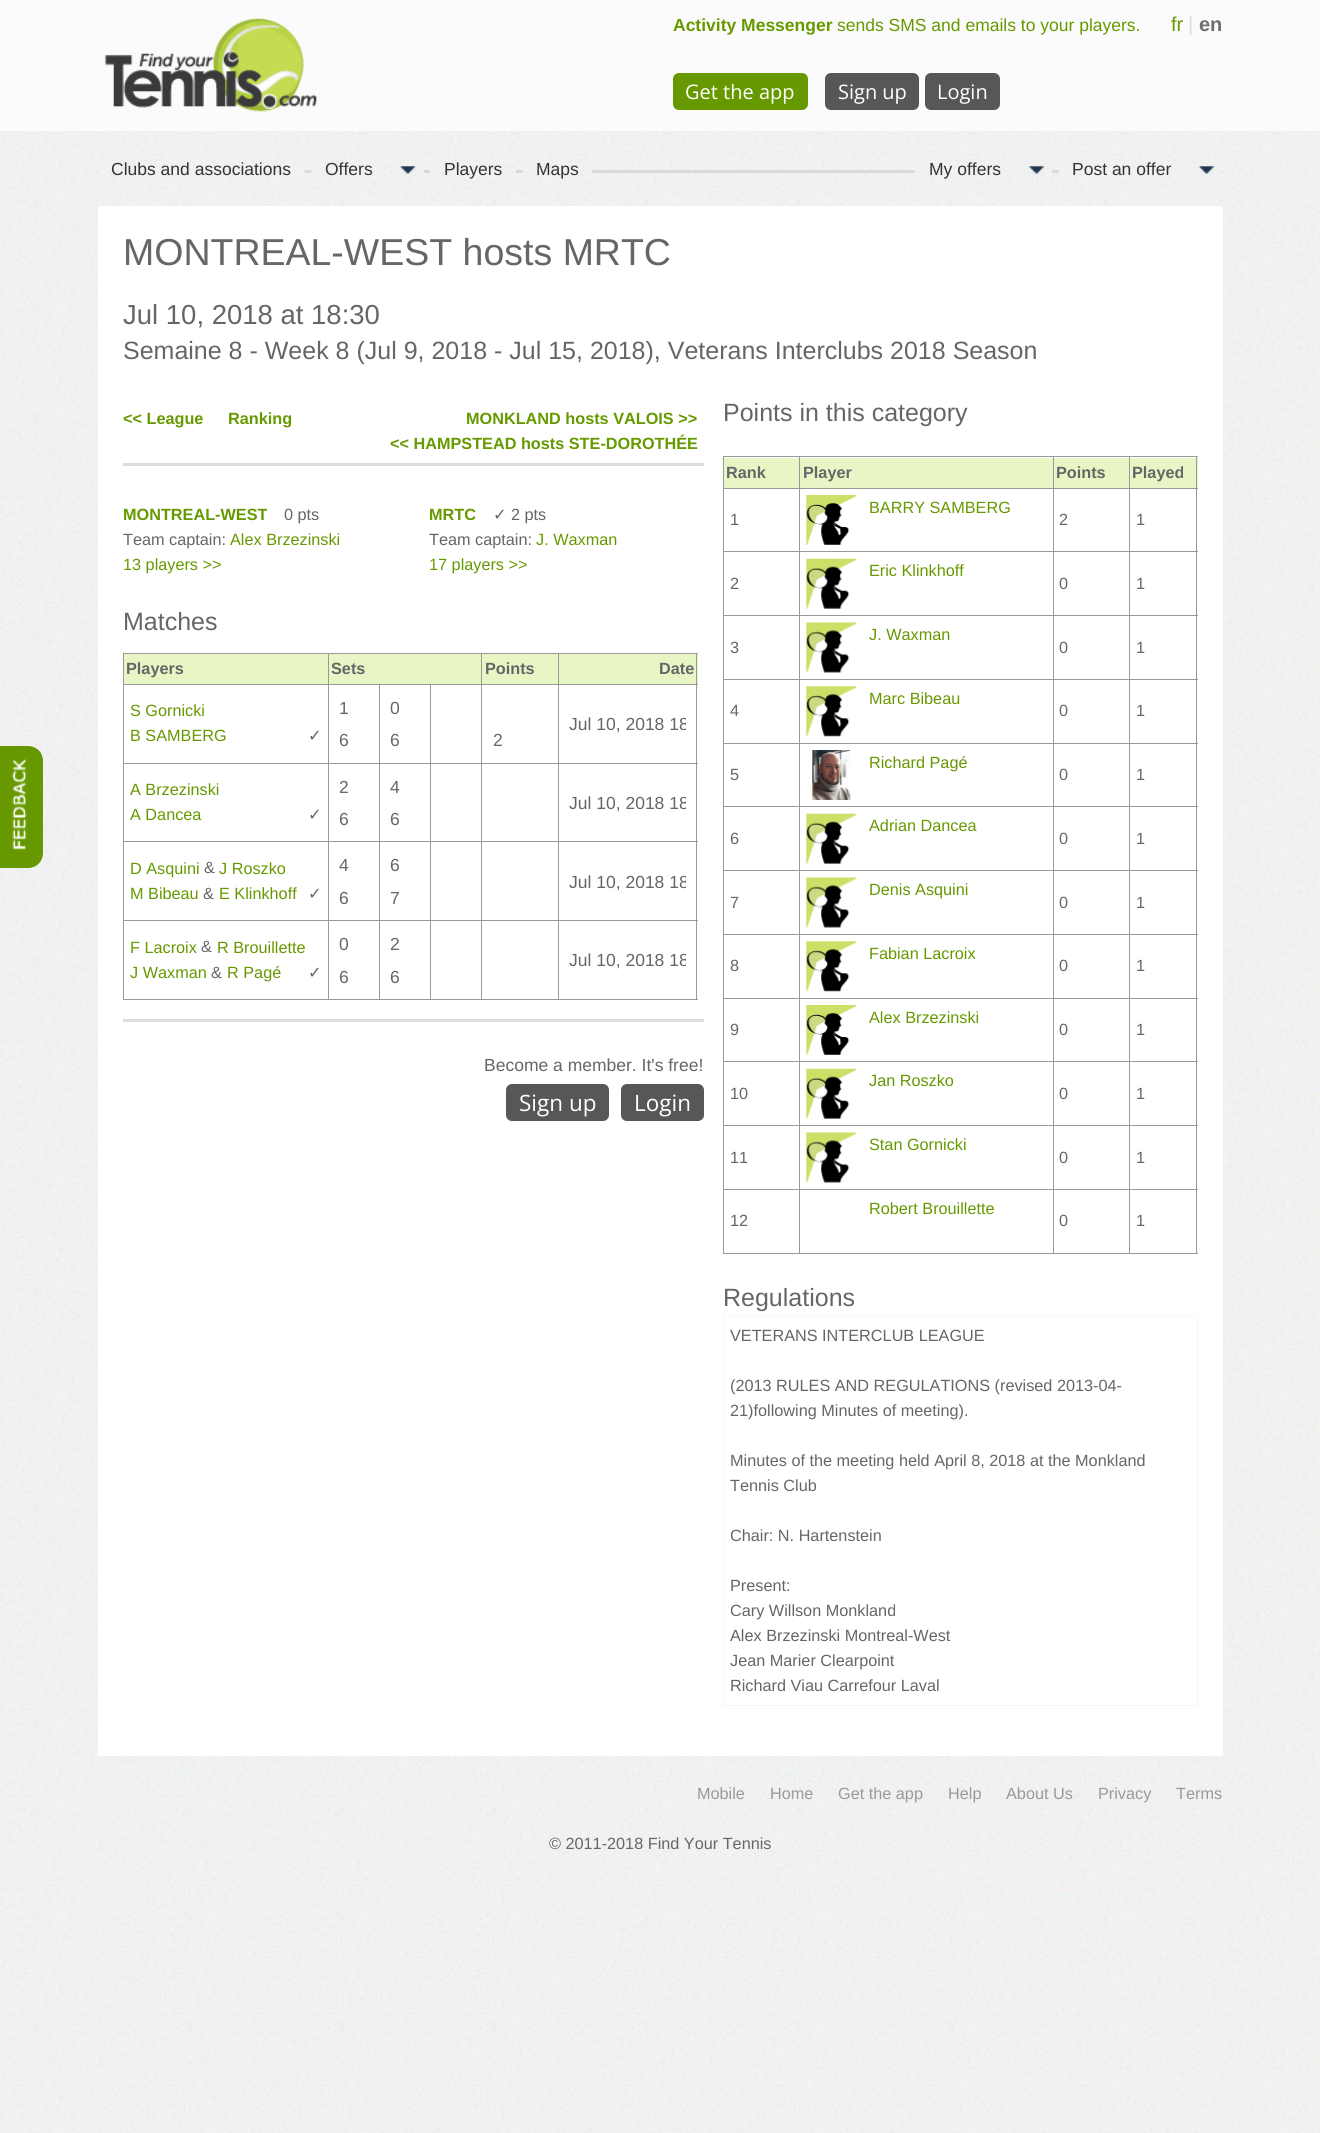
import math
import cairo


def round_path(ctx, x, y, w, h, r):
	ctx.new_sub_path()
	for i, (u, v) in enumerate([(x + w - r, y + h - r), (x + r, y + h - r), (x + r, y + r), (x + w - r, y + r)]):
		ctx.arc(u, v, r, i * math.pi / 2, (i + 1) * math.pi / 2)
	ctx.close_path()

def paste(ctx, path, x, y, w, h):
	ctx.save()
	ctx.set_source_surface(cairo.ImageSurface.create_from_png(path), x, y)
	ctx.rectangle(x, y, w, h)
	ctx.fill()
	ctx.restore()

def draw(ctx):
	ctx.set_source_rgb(1, 1, 1)
	ctx.paint()
	paste(ctx, 'media/1.png', 0, 131, 1320, 2002)
	ctx.set_source_rgb(0.984, 0.984, 0.984)
	ctx.rectangle(0, 0, 1320, 131)
	ctx.fill()
	paste(ctx, 'media/2.png', 104, 18, 213, 94)
	ctx.select_font_face('Liberation Sans', cairo.FONT_SLANT_NORMAL, cairo.FONT_WEIGHT_BOLD)
	ctx.set_font_size(17.5)
	ctx.set_source_rgb(0.4, 0.6, 0)
	ctx.move_to(673, 31)
	ctx.show_text('Activity Messenger')
	ctx.select_font_face('Liberation Sans')
	ctx.move_to(837, 31)
	ctx.show_text('sends SMS and emails to your players.')
	ctx.set_font_size(20)
	ctx.move_to(1171, 31)
	ctx.show_text('fr')
	ctx.set_source_rgb(0.863, 0.855, 0.855)
	ctx.move_to(1188, 31)
	ctx.show_text('|')
	ctx.select_font_face('Liberation Sans', cairo.FONT_SLANT_NORMAL, cairo.FONT_WEIGHT_BOLD)
	ctx.set_source_rgb(0.435, 0.431, 0.431)
	ctx.move_to(1199, 31)
	ctx.show_text('en')
	ctx.set_source_rgb(0.4, 0.6, 0)
	round_path(ctx, 673, 73, 135, 37, 6)
	ctx.fill()
	ctx.select_font_face('Open Sans')
	ctx.set_source_rgb(1, 1, 1)
	ctx.move_to(685, 99)
	ctx.show_text('Get the app')
	ctx.set_source_rgb(0.341, 0.341, 0.341)
	round_path(ctx, 825, 73, 94, 37, 6)
	ctx.fill()
	ctx.set_source_rgb(1, 1, 1)
	ctx.move_to(838, 99)
	ctx.show_text('Sign up')
	ctx.set_source_rgb(0.341, 0.341, 0.341)
	round_path(ctx, 925, 73, 75, 37, 6)
	ctx.fill()
	ctx.set_source_rgb(1, 1, 1)
	ctx.move_to(937, 99)
	ctx.show_text('Login')
	paste(ctx, 'media/4.png', 0, 131, 1320, 1625)
	ctx.set_source_rgb(0.4, 0.6, 0)
	ctx.new_path()
	ctx.move_to(0, 746)
	ctx.line_to(28, 746)
	ctx.curve_to(36.5, 746, 43, 752.5, 43, 761)
	ctx.line_to(43, 853)
	ctx.curve_to(43, 861.5, 36.5, 868, 28, 868)
	ctx.line_to(0, 868)
	ctx.close_path()
	ctx.fill()
	paste(ctx, 'media/3.png', 12, 759, 15, 91)
	ctx.set_source_rgb(0.851, 0.851, 0.851)
	ctx.rectangle(97, 170, 1126, 3)
	ctx.fill()
	paste(ctx, 'media/5.png', 97, 151, 208, 35)
	ctx.select_font_face('Liberation Sans')
	ctx.set_font_size(17.5)
	ctx.set_source_rgb(0.2, 0.2, 0.2)
	ctx.move_to(111, 175)
	ctx.show_text('Clubs and associations')
	paste(ctx, 'media/6.png', 311, 151, 80, 35)
	paste(ctx, 'media/7.png', 391, 151, 33, 35)
	paste(ctx, 'media/8.png', 400, 166, 16, 8)
	ctx.move_to(325, 175)
	ctx.show_text('Offers')
	paste(ctx, 'media/9.png', 430, 151, 86, 35)
	ctx.move_to(444, 175)
	ctx.show_text('Players')
	paste(ctx, 'media/10.png', 522, 151, 71, 35)
	ctx.move_to(536, 175)
	ctx.show_text('Maps')
	paste(ctx, 'media/11.png', 915, 151, 105, 35)
	paste(ctx, 'media/12.png', 1020, 151, 33, 35)
	paste(ctx, 'media/13.png', 1028, 166, 17, 8)
	ctx.move_to(929, 175)
	ctx.show_text('My offers')
	paste(ctx, 'media/14.png', 1059, 151, 131, 35)
	paste(ctx, 'media/15.png', 1190, 151, 33, 35)
	paste(ctx, 'media/13.png', 1198, 166, 17, 8)
	ctx.move_to(1072, 175)
	ctx.show_text('Post an offer')
	ctx.set_source_rgb(1, 1, 1)
	ctx.rectangle(98, 206, 1125, 1550)
	ctx.fill()
	ctx.set_font_size(37.5)
	ctx.set_source_rgb(0.4, 0.4, 0.4)
	ctx.move_to(123, 265)
	ctx.show_text('MONTREAL-WEST hosts MRTC')
	ctx.set_font_size(27.5)
	ctx.move_to(123, 324)
	ctx.show_text('Jul 10, 2018 at 18:30')
	ctx.set_font_size(25)
	ctx.move_to(123, 359)
	ctx.show_text('Semaine 8 - Week 8 (Jul 9, 2018 - Jul 15, 2018), Veterans Interclubs 2018 Season')
	ctx.select_font_face('Liberation Sans', cairo.FONT_SLANT_NORMAL, cairo.FONT_WEIGHT_BOLD)
	ctx.set_font_size(16.25)
	ctx.set_source_rgb(0.4, 0.6, 0)
	for x, y, s in [
		(123, 424, '<< League'),
		(228, 424, 'Ranking'),
		(466, 424, 'MONKLAND hosts VALOIS >>'),
		(390, 449, '<< HAMPSTEAD hosts STE-DOROTHÉE'),
	]:
		ctx.move_to(x, y)
		ctx.show_text(s)
	ctx.set_source_rgb(0.867, 0.867, 0.867)
	ctx.rectangle(123, 463, 581, 3)
	ctx.fill()
	ctx.set_source_rgb(0.4, 0.6, 0)
	ctx.move_to(123, 520)
	ctx.show_text('MONTREAL-WEST')
	ctx.select_font_face('Liberation Sans')
	ctx.set_source_rgb(0.4, 0.4, 0.4)
	ctx.move_to(284, 520)
	ctx.show_text('0 pts')
	ctx.move_to(123, 545)
	ctx.show_text('Team captain:')
	ctx.set_source_rgb(0.4, 0.6, 0)
	ctx.move_to(230, 545)
	ctx.show_text('Alex Brzezinski')
	ctx.move_to(123, 570)
	ctx.show_text('13 players >>')
	ctx.select_font_face('Liberation Sans', cairo.FONT_SLANT_NORMAL, cairo.FONT_WEIGHT_BOLD)
	ctx.move_to(429, 520)
	ctx.show_text('MRTC')
	ctx.select_font_face('DejaVu Sans')
	ctx.set_source_rgb(0.4, 0.4, 0.4)
	ctx.move_to(493, 520)
	ctx.show_text('✓')
	ctx.select_font_face('Liberation Sans')
	ctx.move_to(511, 520)
	ctx.show_text('2 pts')
	ctx.move_to(429, 545)
	ctx.show_text('Team captain:')
	ctx.set_source_rgb(0.4, 0.6, 0)
	ctx.move_to(536, 545)
	ctx.show_text('J. Waxman')
	ctx.move_to(429, 570)
	ctx.show_text('17 players >>')
	ctx.set_font_size(25)
	ctx.set_source_rgb(0.4, 0.4, 0.4)
	ctx.move_to(123, 630)
	ctx.show_text('Matches')
	ctx.set_source_rgb(0.91, 0.961, 0.776)
	ctx.rectangle(124, 654, 204, 30)
	ctx.fill()
	ctx.set_source_rgb(0.6, 0.6, 0.6)
	ctx.rectangle(558, 653, 140, 1)
	ctx.rectangle(558, 684, 140, 1)
	ctx.rectangle(558, 763, 140, 1)
	ctx.rectangle(558, 841, 140, 1)
	ctx.rectangle(558, 920, 140, 1)
	ctx.rectangle(696, 920, 1, 80)
	ctx.rectangle(558, 999, 140, 1)
	ctx.rectangle(558, 920, 1, 80)
	ctx.rectangle(481, 920, 78, 1)
	ctx.rectangle(558, 841, 1, 80)
	ctx.rectangle(481, 841, 78, 1)
	ctx.rectangle(558, 763, 1, 80)
	ctx.rectangle(481, 763, 78, 1)
	ctx.rectangle(558, 684, 1, 80)
	ctx.rectangle(481, 684, 78, 1)
	ctx.rectangle(558, 653, 1, 32)
	ctx.rectangle(481, 653, 78, 1)
	ctx.fill()
	ctx.set_source_rgb(0.91, 0.961, 0.776)
	ctx.rectangle(329, 654, 229, 30)
	ctx.fill()
	ctx.set_source_rgb(0.6, 0.6, 0.6)
	ctx.rectangle(481, 999, 78, 1)
	ctx.rectangle(481, 920, 1, 80)
	ctx.rectangle(430, 920, 53, 1)
	ctx.rectangle(481, 841, 1, 80)
	ctx.rectangle(430, 841, 53, 1)
	ctx.rectangle(481, 763, 1, 80)
	ctx.rectangle(430, 763, 53, 1)
	ctx.rectangle(481, 684, 1, 80)
	ctx.rectangle(430, 684, 53, 1)
	ctx.rectangle(481, 653, 1, 32)
	ctx.rectangle(328, 653, 155, 1)
	ctx.rectangle(430, 999, 53, 1)
	ctx.rectangle(430, 920, 1, 80)
	ctx.rectangle(379, 920, 52, 1)
	ctx.rectangle(430, 841, 1, 80)
	ctx.rectangle(379, 841, 52, 1)
	ctx.rectangle(430, 763, 1, 80)
	ctx.rectangle(379, 763, 52, 1)
	ctx.rectangle(430, 684, 1, 80)
	ctx.rectangle(379, 684, 52, 1)
	ctx.rectangle(379, 999, 52, 1)
	ctx.rectangle(379, 920, 1, 80)
	ctx.rectangle(328, 920, 52, 1)
	ctx.rectangle(379, 841, 1, 80)
	ctx.rectangle(328, 841, 52, 1)
	ctx.rectangle(379, 763, 1, 80)
	ctx.rectangle(328, 763, 52, 1)
	ctx.rectangle(379, 684, 1, 80)
	ctx.rectangle(328, 684, 52, 1)
	ctx.rectangle(328, 999, 52, 1)
	ctx.rectangle(328, 920, 1, 80)
	ctx.rectangle(123, 920, 206, 1)
	ctx.rectangle(328, 841, 1, 80)
	ctx.rectangle(123, 841, 206, 1)
	ctx.rectangle(328, 763, 1, 80)
	ctx.rectangle(123, 763, 206, 1)
	ctx.rectangle(328, 684, 1, 80)
	ctx.rectangle(123, 684, 206, 1)
	ctx.rectangle(328, 653, 1, 32)
	ctx.rectangle(123, 653, 206, 1)
	ctx.rectangle(123, 999, 206, 1)
	ctx.rectangle(123, 920, 1, 80)
	ctx.rectangle(123, 841, 1, 80)
	ctx.rectangle(123, 763, 1, 80)
	ctx.rectangle(123, 684, 1, 80)
	ctx.rectangle(123, 653, 1, 32)
	ctx.fill()
	ctx.select_font_face('Liberation Sans', cairo.FONT_SLANT_NORMAL, cairo.FONT_WEIGHT_BOLD)
	ctx.set_font_size(16.25)
	ctx.set_source_rgb(0.4, 0.4, 0.4)
	for x, y, s in [
		(126, 674, 'Players'),
		(331, 674, 'Sets'),
		(485, 674, 'Points'),
	]:
		ctx.move_to(x, y)
		ctx.show_text(s)
	ctx.set_source_rgb(0.91, 0.961, 0.776)
	ctx.rectangle(559, 654, 139, 30)
	ctx.fill()
	ctx.set_source_rgb(0.6, 0.6, 0.6)
	ctx.rectangle(696, 841, 1, 80)
	ctx.rectangle(696, 763, 1, 80)
	ctx.rectangle(696, 684, 1, 80)
	ctx.rectangle(696, 653, 1, 32)
	ctx.fill()
	ctx.set_source_rgb(0.4, 0.4, 0.4)
	ctx.move_to(659, 674)
	ctx.show_text('Date')
	ctx.select_font_face('Liberation Sans')
	ctx.set_source_rgb(0.4, 0.6, 0)
	ctx.move_to(130, 716)
	ctx.show_text('S Gornicki')
	ctx.move_to(130, 741)
	ctx.show_text('B SAMBERG')
	ctx.select_font_face('DejaVu Sans')
	ctx.set_source_rgb(0.4, 0.4, 0.4)
	ctx.move_to(308, 741)
	ctx.show_text('✓')
	ctx.select_font_face('Liberation Sans')
	ctx.set_font_size(17.5)
	for x, y, s in [
		(339, 714, '1'),
		(339, 746, '6'),
		(390, 714, '0'),
		(390, 746, '6'),
	]:
		ctx.move_to(x, y)
		ctx.show_text(s)
	ctx.save()
	ctx.rectangle(569, 714, 117, 20)
	ctx.clip()
	ctx.move_to(569, 730)
	ctx.show_text('Jul 10, 2018 18')
	ctx.restore()
	ctx.move_to(493, 746)
	ctx.show_text('2')
	ctx.set_font_size(16.25)
	ctx.set_source_rgb(0.4, 0.6, 0)
	ctx.move_to(130, 795)
	ctx.show_text('A Brzezinski')
	ctx.move_to(130, 820)
	ctx.show_text('A Dancea')
	ctx.select_font_face('DejaVu Sans')
	ctx.set_source_rgb(0.4, 0.4, 0.4)
	ctx.move_to(308, 820)
	ctx.show_text('✓')
	ctx.select_font_face('Liberation Sans')
	ctx.set_font_size(17.5)
	for x, y, s in [
		(339, 793, '2'),
		(339, 825, '6'),
		(390, 793, '4'),
		(390, 825, '6'),
	]:
		ctx.move_to(x, y)
		ctx.show_text(s)
	ctx.save()
	ctx.rectangle(569, 793, 117, 20)
	ctx.clip()
	ctx.move_to(569, 809)
	ctx.show_text('Jul 10, 2018 18')
	ctx.restore()
	ctx.set_font_size(16.25)
	ctx.set_source_rgb(0.4, 0.6, 0)
	ctx.move_to(130, 874)
	ctx.show_text('D Asquini')
	ctx.set_source_rgb(0.4, 0.4, 0.4)
	ctx.move_to(204, 873)
	ctx.show_text('&')
	ctx.set_source_rgb(0.4, 0.6, 0)
	ctx.move_to(219, 874)
	ctx.show_text('J Roszko')
	ctx.move_to(130, 899)
	ctx.show_text('M Bibeau')
	ctx.set_source_rgb(0.4, 0.4, 0.4)
	ctx.move_to(203, 899)
	ctx.show_text('&')
	ctx.set_source_rgb(0.4, 0.6, 0)
	ctx.move_to(219, 899)
	ctx.show_text('E Klinkhoff')
	ctx.select_font_face('DejaVu Sans')
	ctx.set_source_rgb(0.4, 0.4, 0.4)
	ctx.move_to(308, 899)
	ctx.show_text('✓')
	ctx.select_font_face('Liberation Sans')
	ctx.set_font_size(17.5)
	for x, y, s in [
		(339, 871, '4'),
		(339, 904, '6'),
		(390, 871, '6'),
		(390, 904, '7'),
	]:
		ctx.move_to(x, y)
		ctx.show_text(s)
	ctx.save()
	ctx.rectangle(569, 871, 117, 20)
	ctx.clip()
	ctx.move_to(569, 888)
	ctx.show_text('Jul 10, 2018 18')
	ctx.restore()
	ctx.set_font_size(16.25)
	ctx.set_source_rgb(0.4, 0.6, 0)
	ctx.move_to(130, 953)
	ctx.show_text('F Lacroix')
	ctx.set_source_rgb(0.4, 0.4, 0.4)
	ctx.move_to(201, 952)
	ctx.show_text('&')
	ctx.set_source_rgb(0.4, 0.6, 0)
	ctx.move_to(217, 953)
	ctx.show_text('R Brouillette')
	ctx.move_to(130, 978)
	ctx.show_text('J Waxman')
	ctx.set_source_rgb(0.4, 0.4, 0.4)
	ctx.move_to(211, 978)
	ctx.show_text('&')
	ctx.set_source_rgb(0.4, 0.6, 0)
	ctx.move_to(227, 978)
	ctx.show_text('R Pagé')
	ctx.select_font_face('DejaVu Sans')
	ctx.set_source_rgb(0.4, 0.4, 0.4)
	ctx.move_to(308, 978)
	ctx.show_text('✓')
	ctx.select_font_face('Liberation Sans')
	ctx.set_font_size(17.5)
	for x, y, s in [
		(339, 950, '0'),
		(339, 983, '6'),
		(390, 950, '2'),
		(390, 983, '6'),
	]:
		ctx.move_to(x, y)
		ctx.show_text(s)
	ctx.save()
	ctx.rectangle(569, 950, 117, 20)
	ctx.clip()
	ctx.move_to(569, 966)
	ctx.show_text('Jul 10, 2018 18')
	ctx.restore()
	ctx.set_source_rgb(0.867, 0.867, 0.867)
	ctx.rectangle(123, 1019, 581, 3)
	ctx.fill()
	ctx.set_source_rgb(0.4, 0.4, 0.4)
	ctx.move_to(484, 1071)
	ctx.show_text('Become a member. It\'s free!')
	ctx.set_source_rgb(0.341, 0.341, 0.341)
	round_path(ctx, 506, 1084, 103, 37, 6)
	ctx.fill()
	ctx.select_font_face('Open Sans')
	ctx.set_font_size(22.5)
	ctx.set_source_rgb(1, 1, 1)
	ctx.move_to(519, 1111)
	ctx.show_text('Sign up')
	ctx.set_source_rgb(0.341, 0.341, 0.341)
	round_path(ctx, 621, 1084, 83, 37, 6)
	ctx.fill()
	ctx.set_source_rgb(1, 1, 1)
	ctx.move_to(634, 1111)
	ctx.show_text('Login')
	ctx.select_font_face('Liberation Sans')
	ctx.set_font_size(25)
	ctx.set_source_rgb(0.4, 0.4, 0.4)
	ctx.move_to(723, 421)
	ctx.show_text('Points in this category')
	ctx.set_source_rgb(0.6, 0.6, 0.6)
	ctx.rectangle(723, 456, 475, 1)
	ctx.fill()
	ctx.set_source_rgb(0.91, 0.961, 0.776)
	ctx.rectangle(1130, 458, 68, 30)
	ctx.fill()
	ctx.set_source_rgb(0.6, 0.6, 0.6)
	ctx.rectangle(1196, 456, 1, 798)
	ctx.rectangle(723, 1253, 475, 1)
	ctx.rectangle(723, 456, 1, 798)
	ctx.fill()
	ctx.set_source_rgb(0.91, 0.961, 0.776)
	ctx.rectangle(724, 458, 75, 30)
	ctx.fill()
	ctx.select_font_face('Liberation Sans', cairo.FONT_SLANT_NORMAL, cairo.FONT_WEIGHT_BOLD)
	ctx.set_font_size(16.25)
	ctx.set_source_rgb(0.4, 0.4, 0.4)
	ctx.move_to(726, 478)
	ctx.show_text('Rank')
	ctx.set_source_rgb(0.91, 0.961, 0.776)
	ctx.rectangle(800, 458, 253, 30)
	ctx.fill()
	ctx.set_source_rgb(0.6, 0.6, 0.6)
	ctx.rectangle(1129, 488, 69, 1)
	ctx.rectangle(1129, 551, 69, 1)
	ctx.rectangle(1129, 615, 69, 1)
	ctx.rectangle(1129, 679, 69, 1)
	ctx.rectangle(1129, 743, 69, 1)
	ctx.rectangle(1129, 806, 69, 1)
	ctx.rectangle(1129, 870, 69, 1)
	ctx.rectangle(1129, 934, 69, 1)
	ctx.rectangle(1129, 998, 69, 1)
	ctx.rectangle(1129, 1061, 69, 1)
	ctx.rectangle(1129, 1125, 69, 1)
	ctx.rectangle(1129, 1189, 69, 1)
	ctx.rectangle(1129, 1189, 1, 65)
	ctx.rectangle(1053, 1189, 77, 1)
	ctx.rectangle(1129, 1125, 1, 65)
	ctx.rectangle(1053, 1125, 77, 1)
	ctx.rectangle(1129, 1061, 1, 65)
	ctx.rectangle(1053, 1061, 77, 1)
	ctx.rectangle(1129, 998, 1, 65)
	ctx.rectangle(1053, 998, 77, 1)
	ctx.rectangle(1129, 934, 1, 65)
	ctx.rectangle(1053, 934, 77, 1)
	ctx.rectangle(1129, 870, 1, 65)
	ctx.rectangle(1053, 870, 77, 1)
	ctx.rectangle(1129, 806, 1, 65)
	ctx.rectangle(1053, 806, 77, 1)
	ctx.rectangle(1129, 743, 1, 65)
	ctx.rectangle(1053, 743, 77, 1)
	ctx.rectangle(1129, 679, 1, 65)
	ctx.rectangle(1053, 679, 77, 1)
	ctx.rectangle(1129, 615, 1, 65)
	ctx.rectangle(1053, 615, 77, 1)
	ctx.rectangle(1129, 551, 1, 65)
	ctx.rectangle(1053, 551, 77, 1)
	ctx.rectangle(1129, 488, 1, 65)
	ctx.rectangle(1053, 488, 77, 1)
	ctx.rectangle(1053, 1189, 1, 65)
	ctx.rectangle(799, 1189, 255, 1)
	ctx.rectangle(1053, 1125, 1, 65)
	ctx.rectangle(799, 1125, 255, 1)
	ctx.rectangle(1053, 1061, 1, 65)
	ctx.rectangle(799, 1061, 255, 1)
	ctx.rectangle(1053, 998, 1, 65)
	ctx.rectangle(799, 998, 255, 1)
	ctx.rectangle(1053, 934, 1, 65)
	ctx.rectangle(799, 934, 255, 1)
	ctx.rectangle(1053, 870, 1, 65)
	ctx.rectangle(799, 870, 255, 1)
	ctx.rectangle(1053, 806, 1, 65)
	ctx.rectangle(799, 806, 255, 1)
	ctx.rectangle(1053, 743, 1, 65)
	ctx.rectangle(799, 743, 255, 1)
	ctx.rectangle(1053, 679, 1, 65)
	ctx.rectangle(799, 679, 255, 1)
	ctx.rectangle(1053, 615, 1, 65)
	ctx.rectangle(799, 615, 255, 1)
	ctx.rectangle(1053, 551, 1, 65)
	ctx.rectangle(799, 551, 255, 1)
	ctx.rectangle(1053, 488, 1, 65)
	ctx.rectangle(799, 488, 255, 1)
	ctx.rectangle(799, 1189, 1, 65)
	ctx.rectangle(723, 1189, 77, 1)
	ctx.rectangle(799, 1125, 1, 65)
	ctx.rectangle(723, 1125, 77, 1)
	ctx.rectangle(799, 1061, 1, 65)
	ctx.rectangle(723, 1061, 77, 1)
	ctx.rectangle(799, 998, 1, 65)
	ctx.rectangle(723, 998, 77, 1)
	ctx.rectangle(799, 934, 1, 65)
	ctx.rectangle(723, 934, 77, 1)
	ctx.rectangle(799, 870, 1, 65)
	ctx.rectangle(723, 870, 77, 1)
	ctx.rectangle(799, 806, 1, 65)
	ctx.rectangle(723, 806, 77, 1)
	ctx.rectangle(799, 743, 1, 65)
	ctx.rectangle(723, 743, 77, 1)
	ctx.rectangle(799, 679, 1, 65)
	ctx.rectangle(723, 679, 77, 1)
	ctx.rectangle(799, 615, 1, 65)
	ctx.rectangle(723, 615, 77, 1)
	ctx.rectangle(799, 551, 1, 65)
	ctx.rectangle(723, 551, 77, 1)
	ctx.rectangle(799, 488, 1, 65)
	ctx.rectangle(723, 488, 77, 1)
	ctx.rectangle(799, 456, 1, 33)
	ctx.fill()
	ctx.set_source_rgb(0.4, 0.4, 0.4)
	ctx.move_to(803, 478)
	ctx.show_text('Player')
	ctx.set_source_rgb(0.91, 0.961, 0.776)
	ctx.rectangle(1054, 458, 75, 30)
	ctx.fill()
	ctx.set_source_rgb(0.6, 0.6, 0.6)
	ctx.rectangle(1053, 456, 1, 33)
	ctx.fill()
	ctx.set_source_rgb(0.4, 0.4, 0.4)
	ctx.move_to(1056, 478)
	ctx.show_text('Points')
	ctx.set_source_rgb(0.6, 0.6, 0.6)
	ctx.rectangle(1129, 456, 1, 33)
	ctx.fill()
	ctx.set_source_rgb(0.4, 0.4, 0.4)
	ctx.move_to(1132, 478)
	ctx.show_text('Played')
	paste(ctx, 'media/16.png', 806, 495, 51, 50)
	ctx.select_font_face('Liberation Sans')
	ctx.set_source_rgb(0.4, 0.6, 0)
	ctx.move_to(869, 513)
	ctx.show_text('BARRY SAMBERG')
	ctx.set_source_rgb(0.4, 0.4, 0.4)
	for x, y, s in [
		(730, 525, '1'),
		(1059, 525, '2'),
		(1136, 525, '1'),
	]:
		ctx.move_to(x, y)
		ctx.show_text(s)
	paste(ctx, 'media/17.png', 806, 558, 51, 51)
	ctx.set_source_rgb(0.4, 0.6, 0)
	ctx.move_to(869, 576)
	ctx.show_text('Eric Klinkhoff')
	ctx.set_source_rgb(0.4, 0.4, 0.4)
	for x, y, s in [
		(730, 589, '2'),
		(1059, 589, '0'),
		(1136, 589, '1'),
	]:
		ctx.move_to(x, y)
		ctx.show_text(s)
	paste(ctx, 'media/18.png', 806, 622, 51, 51)
	ctx.set_source_rgb(0.4, 0.6, 0)
	ctx.move_to(869, 640)
	ctx.show_text('J. Waxman')
	ctx.set_source_rgb(0.4, 0.4, 0.4)
	for x, y, s in [
		(730, 653, '3'),
		(1059, 653, '0'),
		(1136, 653, '1'),
	]:
		ctx.move_to(x, y)
		ctx.show_text(s)
	paste(ctx, 'media/19.png', 806, 686, 51, 51)
	ctx.set_source_rgb(0.4, 0.6, 0)
	ctx.move_to(869, 704)
	ctx.show_text('Marc Bibeau')
	ctx.set_source_rgb(0.4, 0.4, 0.4)
	for x, y, s in [
		(730, 716, '4'),
		(1059, 716, '0'),
		(1136, 716, '1'),
	]:
		ctx.move_to(x, y)
		ctx.show_text(s)
	paste(ctx, 'media/20.png', 812, 750, 39, 50)
	ctx.set_source_rgb(0.4, 0.6, 0)
	ctx.move_to(869, 768)
	ctx.show_text('Richard Pagé')
	ctx.set_source_rgb(0.4, 0.4, 0.4)
	for x, y, s in [
		(730, 780, '5'),
		(1059, 780, '0'),
		(1136, 780, '1'),
	]:
		ctx.move_to(x, y)
		ctx.show_text(s)
	paste(ctx, 'media/17.png', 806, 813, 51, 51)
	ctx.set_source_rgb(0.4, 0.6, 0)
	ctx.move_to(869, 831)
	ctx.show_text('Adrian Dancea')
	ctx.set_source_rgb(0.4, 0.4, 0.4)
	for x, y, s in [
		(730, 844, '6'),
		(1059, 844, '0'),
		(1136, 844, '1'),
	]:
		ctx.move_to(x, y)
		ctx.show_text(s)
	paste(ctx, 'media/18.png', 806, 877, 51, 51)
	ctx.set_source_rgb(0.4, 0.6, 0)
	ctx.move_to(869, 895)
	ctx.show_text('Denis Asquini')
	ctx.set_source_rgb(0.4, 0.4, 0.4)
	for x, y, s in [
		(730, 908, '7'),
		(1059, 908, '0'),
		(1136, 908, '1'),
	]:
		ctx.move_to(x, y)
		ctx.show_text(s)
	paste(ctx, 'media/19.png', 806, 941, 51, 51)
	ctx.set_source_rgb(0.4, 0.6, 0)
	ctx.move_to(869, 959)
	ctx.show_text('Fabian Lacroix')
	ctx.set_source_rgb(0.4, 0.4, 0.4)
	for x, y, s in [
		(730, 971, '8'),
		(1059, 971, '0'),
		(1136, 971, '1'),
	]:
		ctx.move_to(x, y)
		ctx.show_text(s)
	paste(ctx, 'media/16.png', 806, 1005, 51, 50)
	ctx.set_source_rgb(0.4, 0.6, 0)
	ctx.move_to(869, 1023)
	ctx.show_text('Alex Brzezinski')
	ctx.set_source_rgb(0.4, 0.4, 0.4)
	for x, y, s in [
		(730, 1035, '9'),
		(1059, 1035, '0'),
		(1136, 1035, '1'),
	]:
		ctx.move_to(x, y)
		ctx.show_text(s)
	paste(ctx, 'media/17.png', 806, 1068, 51, 51)
	ctx.set_source_rgb(0.4, 0.6, 0)
	ctx.move_to(869, 1086)
	ctx.show_text('Jan Roszko')
	ctx.set_source_rgb(0.4, 0.4, 0.4)
	for x, y, s in [
		(730, 1099, '10'),
		(1059, 1099, '0'),
		(1136, 1099, '1'),
	]:
		ctx.move_to(x, y)
		ctx.show_text(s)
	paste(ctx, 'media/18.png', 806, 1132, 51, 51)
	ctx.set_source_rgb(0.4, 0.6, 0)
	ctx.move_to(869, 1150)
	ctx.show_text('Stan Gornicki')
	ctx.set_source_rgb(0.4, 0.4, 0.4)
	for x, y, s in [
		(730, 1163, '11'),
		(1059, 1163, '0'),
		(1136, 1163, '1'),
	]:
		ctx.move_to(x, y)
		ctx.show_text(s)
	ctx.set_source_rgb(0.4, 0.6, 0)
	ctx.move_to(869, 1214)
	ctx.show_text('Robert Brouillette')
	ctx.set_source_rgb(0.4, 0.4, 0.4)
	for x, y, s in [
		(730, 1226, '12'),
		(1059, 1226, '0'),
		(1136, 1226, '1'),
	]:
		ctx.move_to(x, y)
		ctx.show_text(s)
	ctx.set_font_size(25)
	ctx.move_to(723, 1306)
	ctx.show_text('Regulations')
	ctx.rectangle(723.5, 1316.5, 474, 389)
	ctx.set_source_rgb(0.961, 0.961, 0.961)
	ctx.set_line_width(1)
	ctx.stroke()
	ctx.set_font_size(16.25)
	ctx.set_source_rgb(0.4, 0.4, 0.4)
	for x, y, s in [
		(730, 1341, 'VETERANS INTERCLUB LEAGUE'),
		(730, 1391, '(2013 RULES AND REGULATIONS (revised 2013-04-'),
		(730, 1416, '21)following Minutes of meeting).'),
		(730, 1466, 'Minutes of the meeting held April 8, 2018 at the Monkland'),
		(730, 1491, 'Tennis Club'),
		(730, 1541, 'Chair: N. Hartenstein'),
		(730, 1591, 'Present:'),
		(730, 1616, 'Cary Willson Monkland'),
		(730, 1641, 'Alex Brzezinski Montreal-West'),
		(730, 1666, 'Jean Marier Clearpoint'),
		(730, 1691, 'Richard Viau Carrefour Laval'),
	]:
		ctx.move_to(x, y)
		ctx.show_text(s)
	ctx.set_source_rgb(0.6, 0.6, 0.6)
	for x, y, s in [
		(697, 1799, 'Mobile'),
		(770, 1799, 'Home'),
		(838, 1799, 'Get the app'),
		(948, 1799, 'Help'),
		(1006, 1799, 'About Us'),
		(1098, 1799, 'Privacy'),
		(1176, 1799, 'Terms'),
	]:
		ctx.move_to(x, y)
		ctx.show_text(s)
	ctx.set_source_rgb(0.4, 0.4, 0.4)
	ctx.move_to(549, 1849)
	ctx.show_text('© 2011-2018 Find Your Tennis')


surface = cairo.ImageSurface(cairo.FORMAT_RGB24, 1320, 2133)
ctx = cairo.Context(surface)
options = cairo.FontOptions()
options.set_hint_metrics(cairo.HINT_METRICS_OFF)
options.set_hint_style(cairo.HINT_STYLE_NONE)
ctx.set_font_options(options)
ctx.set_miter_limit(4)
draw(ctx)
surface.write_to_png('image.png')
